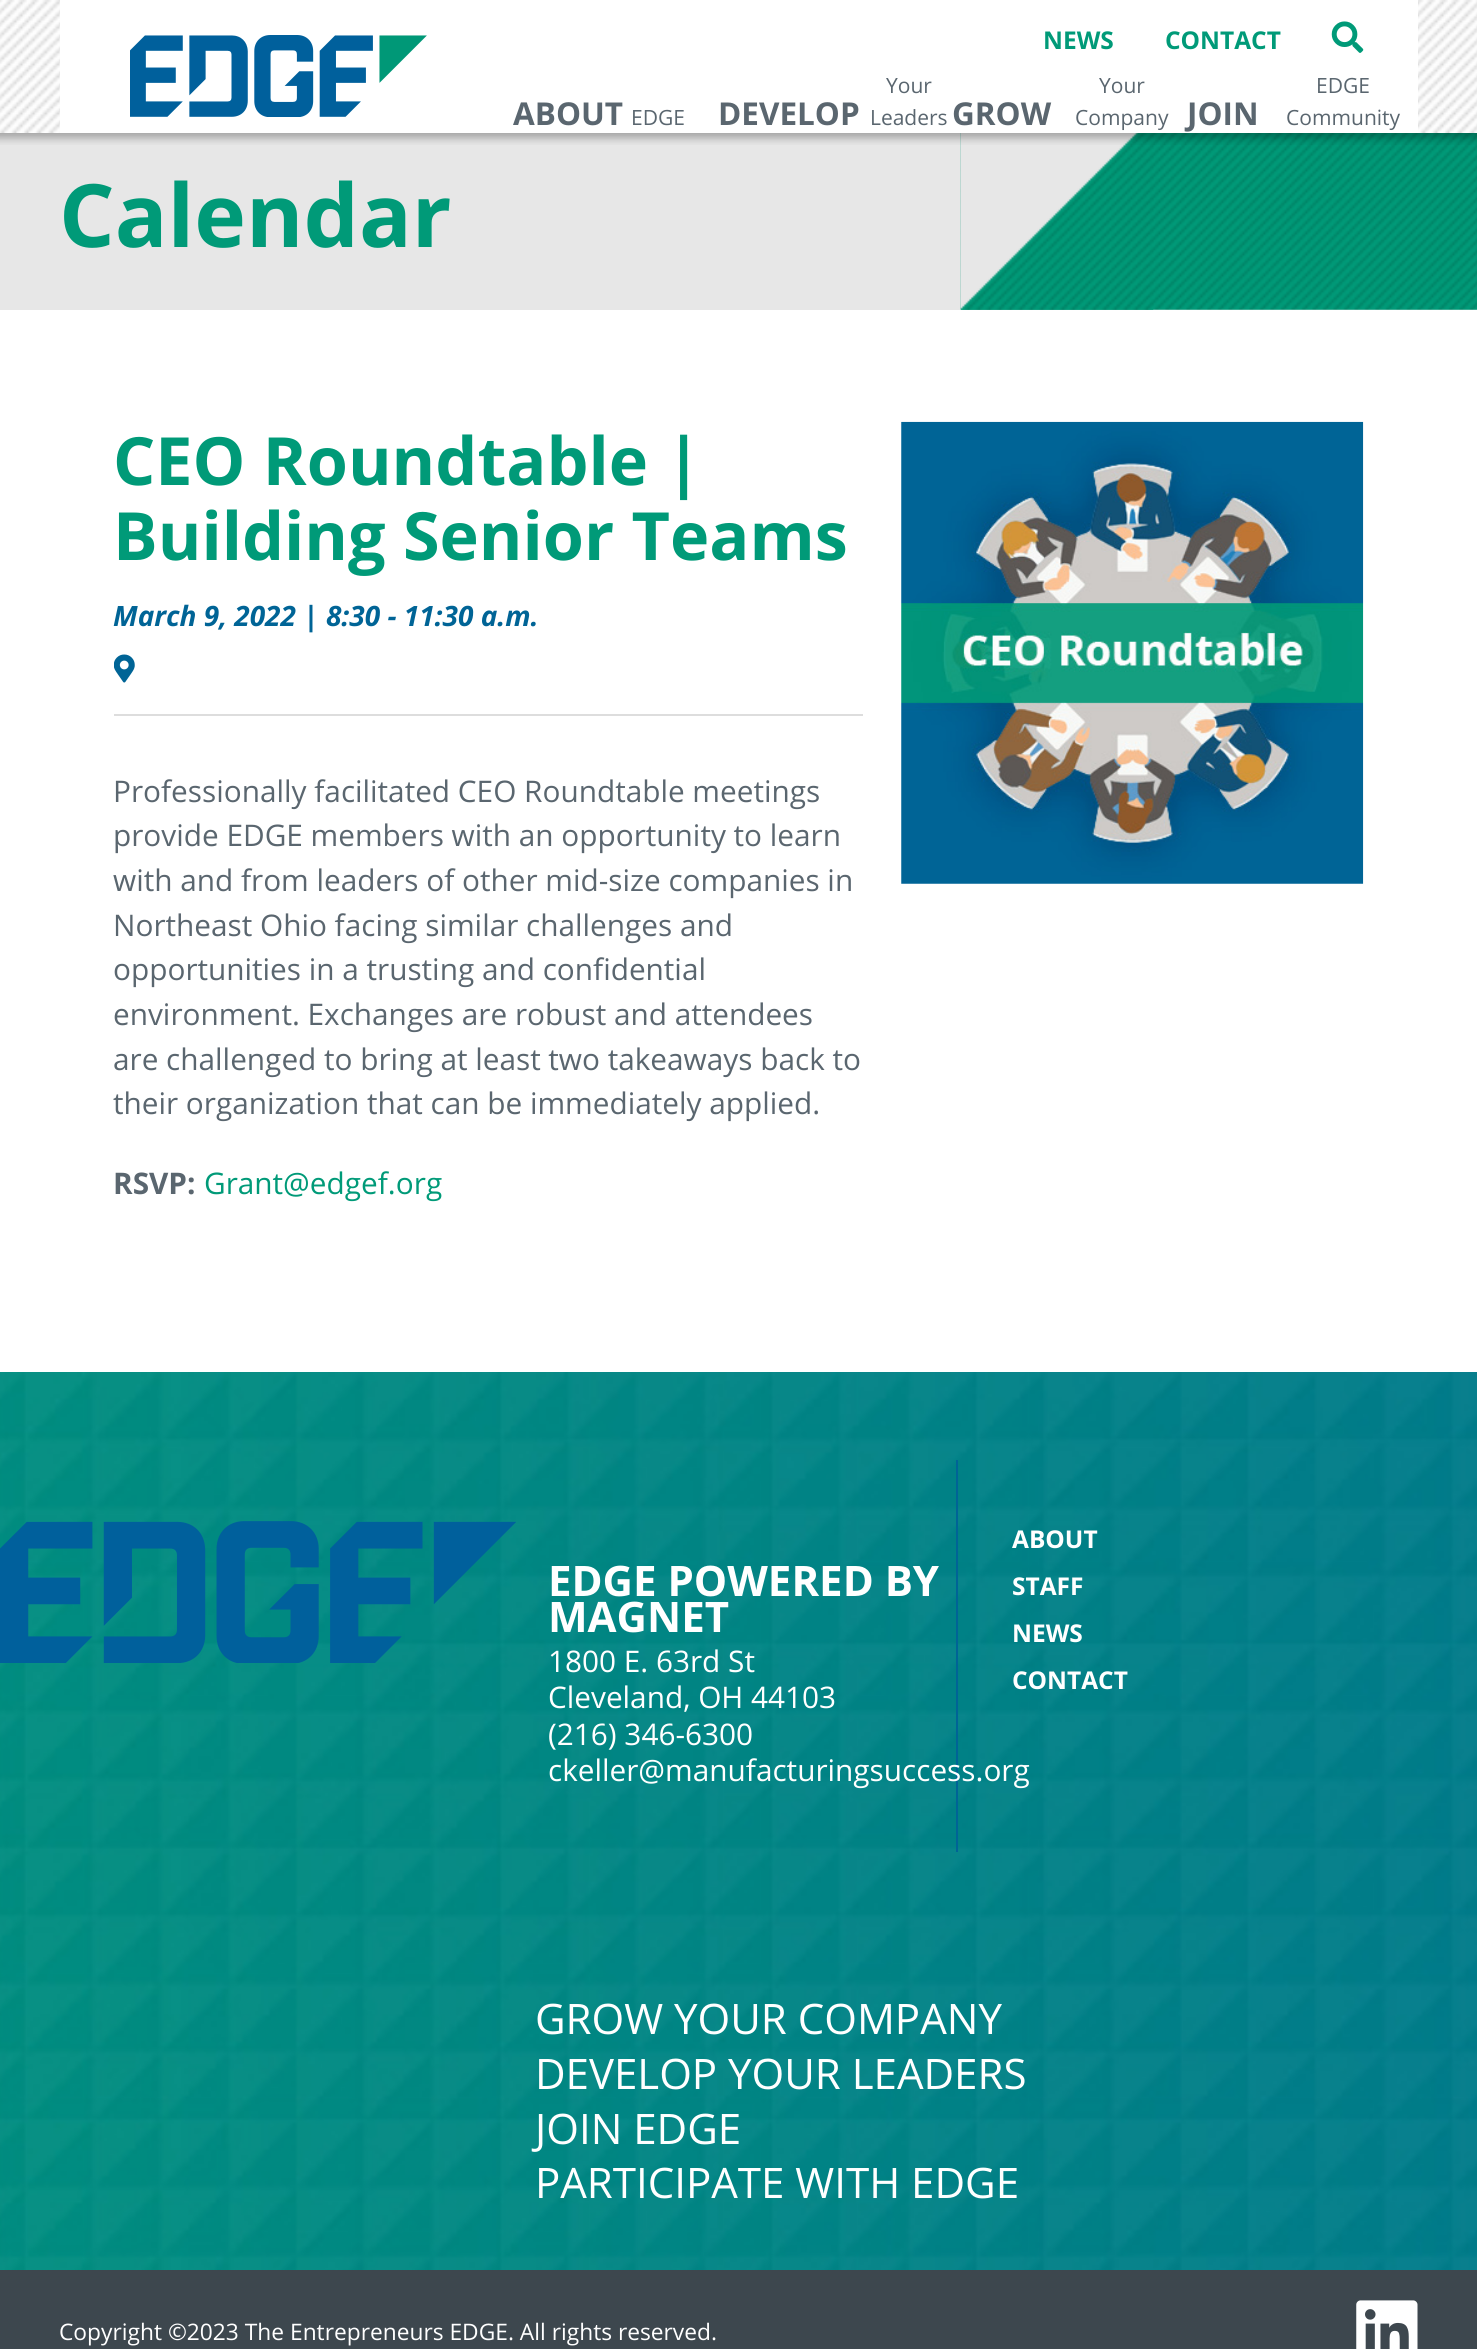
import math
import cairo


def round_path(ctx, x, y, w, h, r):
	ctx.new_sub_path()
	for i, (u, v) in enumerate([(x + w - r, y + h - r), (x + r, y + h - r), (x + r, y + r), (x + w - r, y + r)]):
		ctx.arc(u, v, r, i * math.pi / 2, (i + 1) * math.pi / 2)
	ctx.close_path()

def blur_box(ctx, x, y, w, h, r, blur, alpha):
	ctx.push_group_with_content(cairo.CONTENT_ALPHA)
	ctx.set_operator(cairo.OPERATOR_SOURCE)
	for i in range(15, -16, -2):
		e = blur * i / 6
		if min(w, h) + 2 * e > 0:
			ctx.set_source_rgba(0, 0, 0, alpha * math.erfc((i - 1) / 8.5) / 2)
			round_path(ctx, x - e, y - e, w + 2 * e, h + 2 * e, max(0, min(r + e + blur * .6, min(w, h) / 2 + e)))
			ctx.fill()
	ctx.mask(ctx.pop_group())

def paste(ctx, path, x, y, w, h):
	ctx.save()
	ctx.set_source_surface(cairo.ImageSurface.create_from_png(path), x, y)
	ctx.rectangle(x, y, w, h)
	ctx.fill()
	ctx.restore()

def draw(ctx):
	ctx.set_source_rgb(1, 1, 1)
	ctx.paint()
	paste(ctx, 'media/1.png', 0, 0, 1477, 133)
	ctx.set_source_rgb(1, 1, 1)
	ctx.rectangle(60, 0, 1358, 133)
	ctx.fill()
	paste(ctx, 'media/2.png', 130, 35, 297, 82)
	paste(ctx, 'media/3.png', 1331, 21, 33, 32)
	ctx.set_source_rgb(0.906, 0.906, 0.906)
	ctx.rectangle(0, 133, 1477, 177)
	ctx.fill()
	paste(ctx, 'media/4.png', 960, 133, 517, 177)
	paste(ctx, 'media/5.png', 960, 133, 194, 177)
	ctx.save()
	ctx.rectangle(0, 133, 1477, 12)
	ctx.clip()
	ctx.set_source_rgb(0, 0, 0)
	blur_box(ctx, -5, -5, 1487, 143, 0, 4.5, 0.3)
	ctx.restore()
	ctx.select_font_face('Open Sans', cairo.FONT_SLANT_NORMAL, cairo.FONT_WEIGHT_BOLD)
	ctx.set_font_size(24.5)
	ctx.set_source_rgb(0, 0.604, 0.471)
	ctx.move_to(1043, 49)
	ctx.show_text('NEWS')
	ctx.move_to(1165, 49)
	ctx.show_text('CONTACT')
	ctx.set_font_size(31.5)
	ctx.set_source_rgb(0.353, 0.4, 0.435)
	ctx.move_to(513, 125)
	ctx.show_text('ABOUT')
	ctx.select_font_face('Open Sans')
	ctx.set_font_size(21)
	ctx.move_to(631, 125)
	ctx.show_text('EDGE')
	ctx.select_font_face('Open Sans', cairo.FONT_SLANT_NORMAL, cairo.FONT_WEIGHT_BOLD)
	ctx.set_font_size(31.5)
	ctx.move_to(718, 125)
	ctx.show_text('DEVELOP')
	ctx.select_font_face('Open Sans')
	ctx.set_font_size(21)
	ctx.move_to(886, 93)
	ctx.show_text('Your')
	ctx.move_to(870, 125)
	ctx.show_text('Leaders')
	ctx.select_font_face('Open Sans', cairo.FONT_SLANT_NORMAL, cairo.FONT_WEIGHT_BOLD)
	ctx.set_font_size(31.5)
	ctx.move_to(952, 125)
	ctx.show_text('GROW')
	ctx.select_font_face('Open Sans')
	ctx.set_font_size(21)
	ctx.move_to(1099, 93)
	ctx.show_text('Your')
	ctx.move_to(1075, 125)
	ctx.show_text('Company')
	ctx.select_font_face('Open Sans', cairo.FONT_SLANT_NORMAL, cairo.FONT_WEIGHT_BOLD)
	ctx.set_font_size(31.5)
	ctx.move_to(1187, 125)
	ctx.show_text('JOIN')
	ctx.select_font_face('Open Sans')
	ctx.set_font_size(21)
	ctx.move_to(1316, 93)
	ctx.show_text('EDGE')
	ctx.move_to(1286, 125)
	ctx.show_text('Community')
	ctx.select_font_face('Open Sans', cairo.FONT_SLANT_NORMAL, cairo.FONT_WEIGHT_BOLD)
	ctx.set_font_size(87.5)
	ctx.set_source_rgb(0, 0.604, 0.471)
	ctx.move_to(59, 247)
	ctx.show_text('Calendar')
	ctx.set_font_size(66.5)
	ctx.move_to(113, 485)
	ctx.show_text('CEO Roundtable |')
	ctx.move_to(113, 560)
	ctx.show_text('Building Senior Teams')
	ctx.set_source_rgb(0.867, 0.867, 0.867)
	ctx.rectangle(114, 714, 749, 2)
	ctx.fill()
	ctx.select_font_face('Open Sans', cairo.FONT_SLANT_ITALIC, cairo.FONT_WEIGHT_BOLD)
	ctx.set_font_size(28)
	ctx.set_source_rgb(0, 0.392, 0.588)
	ctx.move_to(113, 626)
	ctx.show_text('March 9, 2022 | 8:30 - 11:30 a.m.')
	paste(ctx, 'media/6.png', 114, 654, 21, 29)
	ctx.select_font_face('Open Sans')
	ctx.set_font_size(29.75)
	ctx.set_source_rgb(0.353, 0.4, 0.435)
	for x, y, s in [
		(113, 802, 'Professionally facilitated CEO Roundtable meetings'),
		(113, 846, 'provide EDGE members with an opportunity to learn'),
		(113, 891, 'with and from leaders of other mid-size companies in'),
		(113, 936, 'Northeast Ohio facing similar challenges and'),
		(113, 980, 'opportunities in a trusting and confidential'),
		(113, 1025, 'environment. Exchanges are robust and attendees'),
		(113, 1070, 'are challenged to bring at least two takeaways back to'),
		(113, 1114, 'their organization that can be immediately applied.'),
	]:
		ctx.move_to(x, y)
		ctx.show_text(s)
	ctx.select_font_face('Open Sans', cairo.FONT_SLANT_NORMAL, cairo.FONT_WEIGHT_BOLD)
	ctx.move_to(113, 1194)
	ctx.show_text('RSVP:')
	ctx.select_font_face('Open Sans')
	ctx.set_source_rgb(0, 0.604, 0.471)
	ctx.move_to(204, 1194)
	ctx.show_text('Grant@edgef.org')
	paste(ctx, 'media/7.png', 901, 421, 463, 463)
	paste(ctx, 'media/8.png', 0, 1372, 1477, 898)
	paste(ctx, 'media/9.png', 0, 1521, 516, 142)
	ctx.set_source_rgb(0, 0.392, 0.588)
	ctx.rectangle(956, 1460, 2, 392)
	ctx.fill()
	ctx.select_font_face('Open Sans', cairo.FONT_SLANT_NORMAL, cairo.FONT_WEIGHT_BOLD)
	ctx.set_font_size(42)
	ctx.set_source_rgb(1, 1, 1)
	ctx.move_to(548, 1596)
	ctx.show_text('EDGE POWERED BY')
	ctx.move_to(548, 1632)
	ctx.show_text('MAGNET')
	ctx.select_font_face('Open Sans')
	ctx.set_font_size(29.75)
	for x, y, s in [
		(548, 1672, '1800 E. 63rd St'),
		(548, 1708, 'Cleveland, OH 44103'),
		(548, 1745, '(216) 346-6300'),
		(548, 1781, 'ckeller@manufacturingsuccess.org'),
	]:
		ctx.move_to(x, y)
		ctx.show_text(s)
	ctx.select_font_face('Open Sans', cairo.FONT_SLANT_NORMAL, cairo.FONT_WEIGHT_BOLD)
	ctx.set_font_size(24.5)
	for x, y, s in [
		(1012, 1548, 'ABOUT'),
		(1012, 1595, 'STAFF'),
		(1012, 1642, 'NEWS'),
		(1012, 1689, 'CONTACT'),
	]:
		ctx.move_to(x, y)
		ctx.show_text(s)
	ctx.select_font_face('Open Sans')
	ctx.set_font_size(42)
	for x, y, s in [
		(535, 2034, 'GROW YOUR COMPANY'),
		(535, 2089, 'DEVELOP YOUR LEADERS'),
		(535, 2144, 'JOIN EDGE'),
		(535, 2198, 'PARTICIPATE WITH EDGE'),
	]:
		ctx.move_to(x, y)
		ctx.show_text(s)
	ctx.set_source_rgb(0.239, 0.278, 0.306)
	ctx.rectangle(0, 2270, 1477, 79)
	ctx.fill()
	ctx.set_font_size(22.75)
	ctx.set_source_rgb(1, 1, 1)
	ctx.move_to(59, 2340)
	ctx.show_text('Copyright ©2023 The Entrepreneurs EDGE. All rights reserved.')
	paste(ctx, 'media/10.png', 1356, 2300, 62, 49)


surface = cairo.ImageSurface(cairo.FORMAT_RGB24, 1477, 2349)
ctx = cairo.Context(surface)
options = cairo.FontOptions()
options.set_hint_metrics(cairo.HINT_METRICS_OFF)
options.set_hint_style(cairo.HINT_STYLE_NONE)
ctx.set_font_options(options)
ctx.set_miter_limit(4)
draw(ctx)
surface.write_to_png('image.png')
